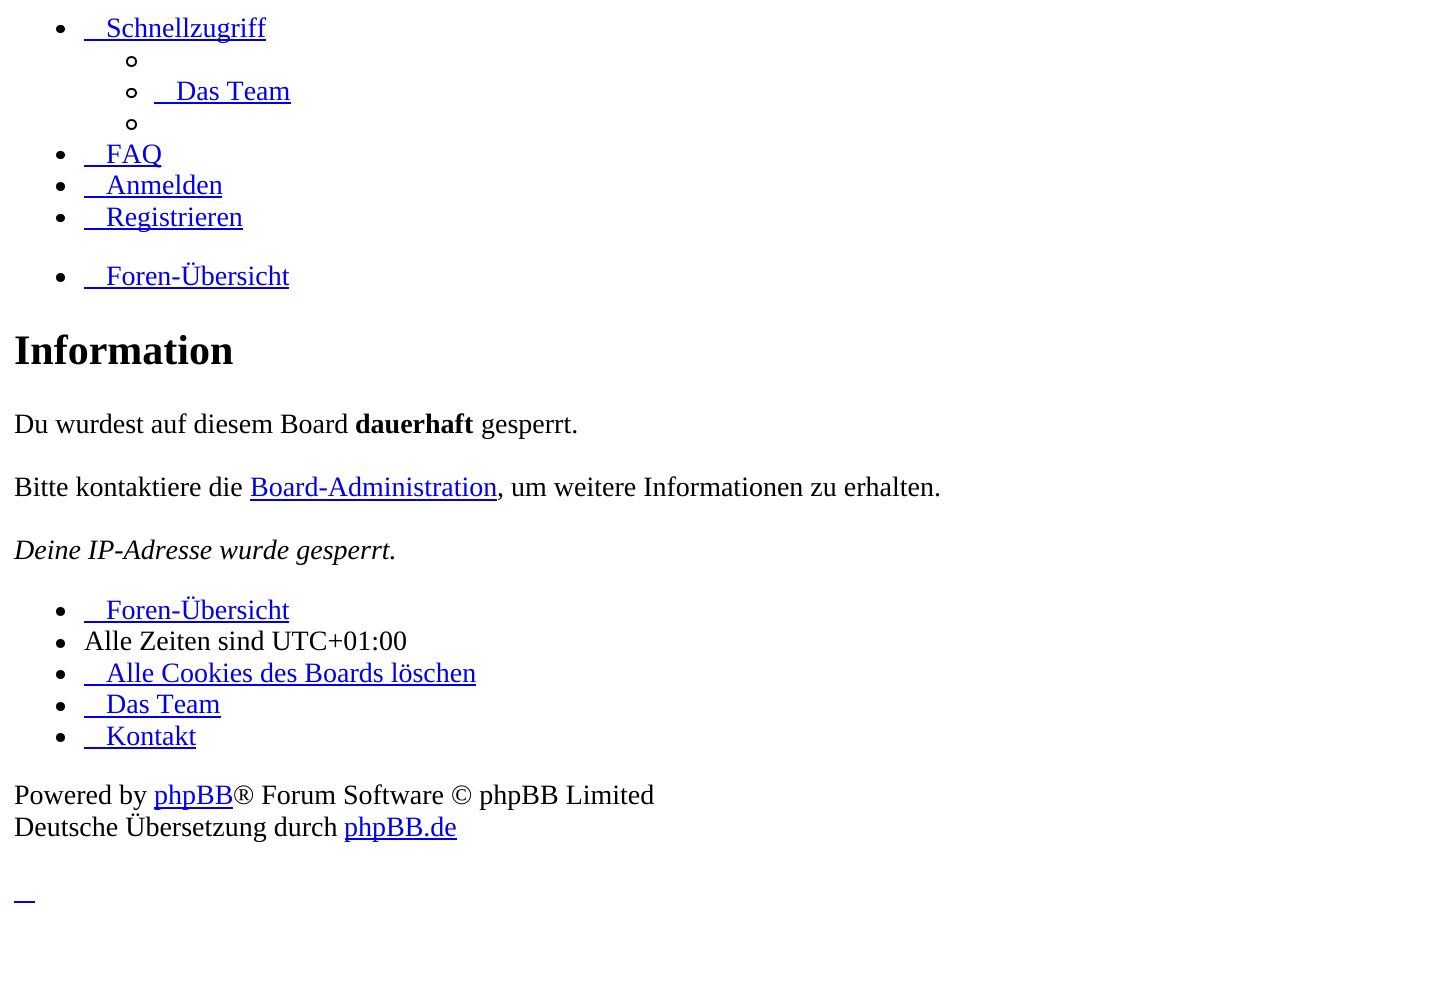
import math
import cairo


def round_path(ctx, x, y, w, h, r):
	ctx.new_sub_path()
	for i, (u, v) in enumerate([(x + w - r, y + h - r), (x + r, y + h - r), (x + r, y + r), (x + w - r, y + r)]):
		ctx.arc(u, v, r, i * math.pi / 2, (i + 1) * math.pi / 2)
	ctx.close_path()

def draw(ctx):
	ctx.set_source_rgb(1, 1, 1)
	ctx.paint()
	ctx.set_source_rgb(0, 0, 0)
	round_path(ctx, 56, 25, 9, 8, 4)
	ctx.fill()
	ctx.set_source_rgb(0, 0, 0.933)
	ctx.rectangle(84, 39, 182, 2)
	ctx.fill()
	ctx.select_font_face('Liberation Serif')
	ctx.set_font_size(28)
	ctx.move_to(106, 37)
	ctx.show_text('Schnellzugriff')
	ctx.new_path()
	ctx.arc(131.5, 61.5, 4.5, 0, 2 * math.pi)
	ctx.set_source_rgb(0, 0, 0)
	ctx.stroke()
	round_path(ctx, 127, 89, 9, 8, 4)
	ctx.stroke()
	ctx.set_source_rgb(0, 0, 0.933)
	ctx.move_to(176, 100)
	ctx.show_text('Das Team')
	ctx.rectangle(154, 102, 137, 2)
	ctx.fill()
	ctx.arc(131.5, 124.5, 4.5, 0, 2 * math.pi)
	ctx.set_source_rgb(0, 0, 0)
	ctx.stroke()
	round_path(ctx, 56, 151, 9, 8, 4)
	ctx.fill()
	ctx.set_source_rgb(0, 0, 0.933)
	ctx.rectangle(84, 165, 77, 2)
	ctx.fill()
	ctx.move_to(106, 163)
	ctx.show_text('FAQ')
	ctx.set_source_rgb(0, 0, 0)
	ctx.new_path()
	ctx.arc(60.5, 186.5, 4.5, 0, 2 * math.pi)
	ctx.fill()
	ctx.set_source_rgb(0, 0, 0.933)
	ctx.move_to(106, 194)
	ctx.show_text('Anmelden')
	ctx.rectangle(84, 196, 138, 2)
	ctx.fill()
	ctx.set_source_rgb(0, 0, 0)
	round_path(ctx, 56, 214, 9, 8, 4)
	ctx.fill()
	ctx.set_source_rgb(0, 0, 0.933)
	ctx.rectangle(84, 228, 159, 2)
	ctx.fill()
	ctx.move_to(106, 226)
	ctx.show_text('Registrieren')
	ctx.set_source_rgb(0, 0, 0)
	ctx.new_path()
	ctx.arc(60.5, 277.5, 4.5, 0, 2 * math.pi)
	ctx.fill()
	ctx.set_source_rgb(0, 0, 0.933)
	ctx.move_to(106, 285)
	ctx.show_text('Foren-Übersicht')
	ctx.rectangle(84, 287, 205, 2)
	ctx.fill()
	ctx.select_font_face('Liberation Serif', cairo.FONT_SLANT_NORMAL, cairo.FONT_WEIGHT_BOLD)
	ctx.set_font_size(42)
	ctx.set_source_rgb(0, 0, 0)
	ctx.move_to(14, 364)
	ctx.show_text('Information')
	ctx.select_font_face('Liberation Serif')
	ctx.set_font_size(28)
	ctx.move_to(14, 433)
	ctx.show_text('Du wurdest auf diesem Board')
	ctx.select_font_face('Liberation Serif', cairo.FONT_SLANT_NORMAL, cairo.FONT_WEIGHT_BOLD)
	ctx.move_to(355, 433)
	ctx.show_text('dauerhaft')
	ctx.select_font_face('Liberation Serif')
	ctx.move_to(481, 433)
	ctx.show_text('gesperrt.')
	ctx.move_to(14, 496)
	ctx.show_text('Bitte kontaktiere die')
	ctx.set_source_rgb(0, 0, 0.933)
	ctx.move_to(250, 496)
	ctx.show_text('Board-Administration')
	ctx.rectangle(250, 499, 247, 2)
	ctx.fill()
	ctx.set_source_rgb(0, 0, 0)
	ctx.move_to(497, 496)
	ctx.show_text(', um weitere Informationen zu erhalten.')
	ctx.select_font_face('Liberation Serif', cairo.FONT_SLANT_ITALIC)
	ctx.move_to(14, 559)
	ctx.show_text('Deine IP-Adresse wurde gesperrt.')
	ctx.new_path()
	ctx.arc(60.5, 611.5, 4.5, 0, 2 * math.pi)
	ctx.fill()
	ctx.select_font_face('Liberation Serif')
	ctx.set_source_rgb(0, 0, 0.933)
	ctx.move_to(106, 619)
	ctx.show_text('Foren-Übersicht')
	ctx.rectangle(84, 621, 205, 2)
	ctx.fill()
	ctx.set_source_rgb(0, 0, 0)
	ctx.arc(60.5, 643.5, 4.5, 0, 2 * math.pi)
	ctx.fill()
	ctx.move_to(84, 650)
	ctx.show_text('Alle Zeiten sind UTC+01:00')
	ctx.new_path()
	ctx.arc(60.5, 674.5, 4.5, 0, 2 * math.pi)
	ctx.fill()
	ctx.set_source_rgb(0, 0, 0.933)
	ctx.move_to(106, 682)
	ctx.show_text('Alle Cookies des Boards löschen')
	ctx.rectangle(84, 684, 392, 2)
	ctx.fill()
	ctx.set_source_rgb(0, 0, 0)
	ctx.arc(60.5, 706.5, 4.5, 0, 2 * math.pi)
	ctx.fill()
	ctx.set_source_rgb(0, 0, 0.933)
	ctx.move_to(106, 713)
	ctx.show_text('Das Team')
	ctx.rectangle(84, 716, 137, 2)
	ctx.fill()
	ctx.set_source_rgb(0, 0, 0)
	ctx.arc(60.5, 737.5, 4.5, 0, 2 * math.pi)
	ctx.fill()
	ctx.set_source_rgb(0, 0, 0.933)
	ctx.move_to(106, 745)
	ctx.show_text('Kontakt')
	ctx.rectangle(84, 747, 112, 2)
	ctx.fill()
	ctx.set_source_rgb(0, 0, 0)
	ctx.move_to(14, 804)
	ctx.show_text('Powered by')
	ctx.set_source_rgb(0, 0, 0.933)
	ctx.rectangle(154, 807, 79, 2)
	ctx.fill()
	ctx.move_to(154, 804)
	ctx.show_text('phpBB')
	ctx.set_source_rgb(0, 0, 0)
	ctx.move_to(233, 804)
	ctx.show_text('® Forum Software © phpBB Limited')
	ctx.move_to(14, 836)
	ctx.show_text('Deutsche Übersetzung durch')
	ctx.set_source_rgb(0, 0, 0.933)
	ctx.rectangle(345, 838, 112, 2)
	ctx.fill()
	ctx.move_to(344, 836)
	ctx.show_text('phpBB.de')
	ctx.rectangle(14, 901, 21, 2)
	ctx.fill()


surface = cairo.ImageSurface(cairo.FORMAT_RGB24, 1430, 990)
ctx = cairo.Context(surface)
options = cairo.FontOptions()
options.set_hint_metrics(cairo.HINT_METRICS_OFF)
options.set_hint_style(cairo.HINT_STYLE_NONE)
ctx.set_font_options(options)
ctx.set_miter_limit(4)
draw(ctx)
surface.write_to_png('image.png')
